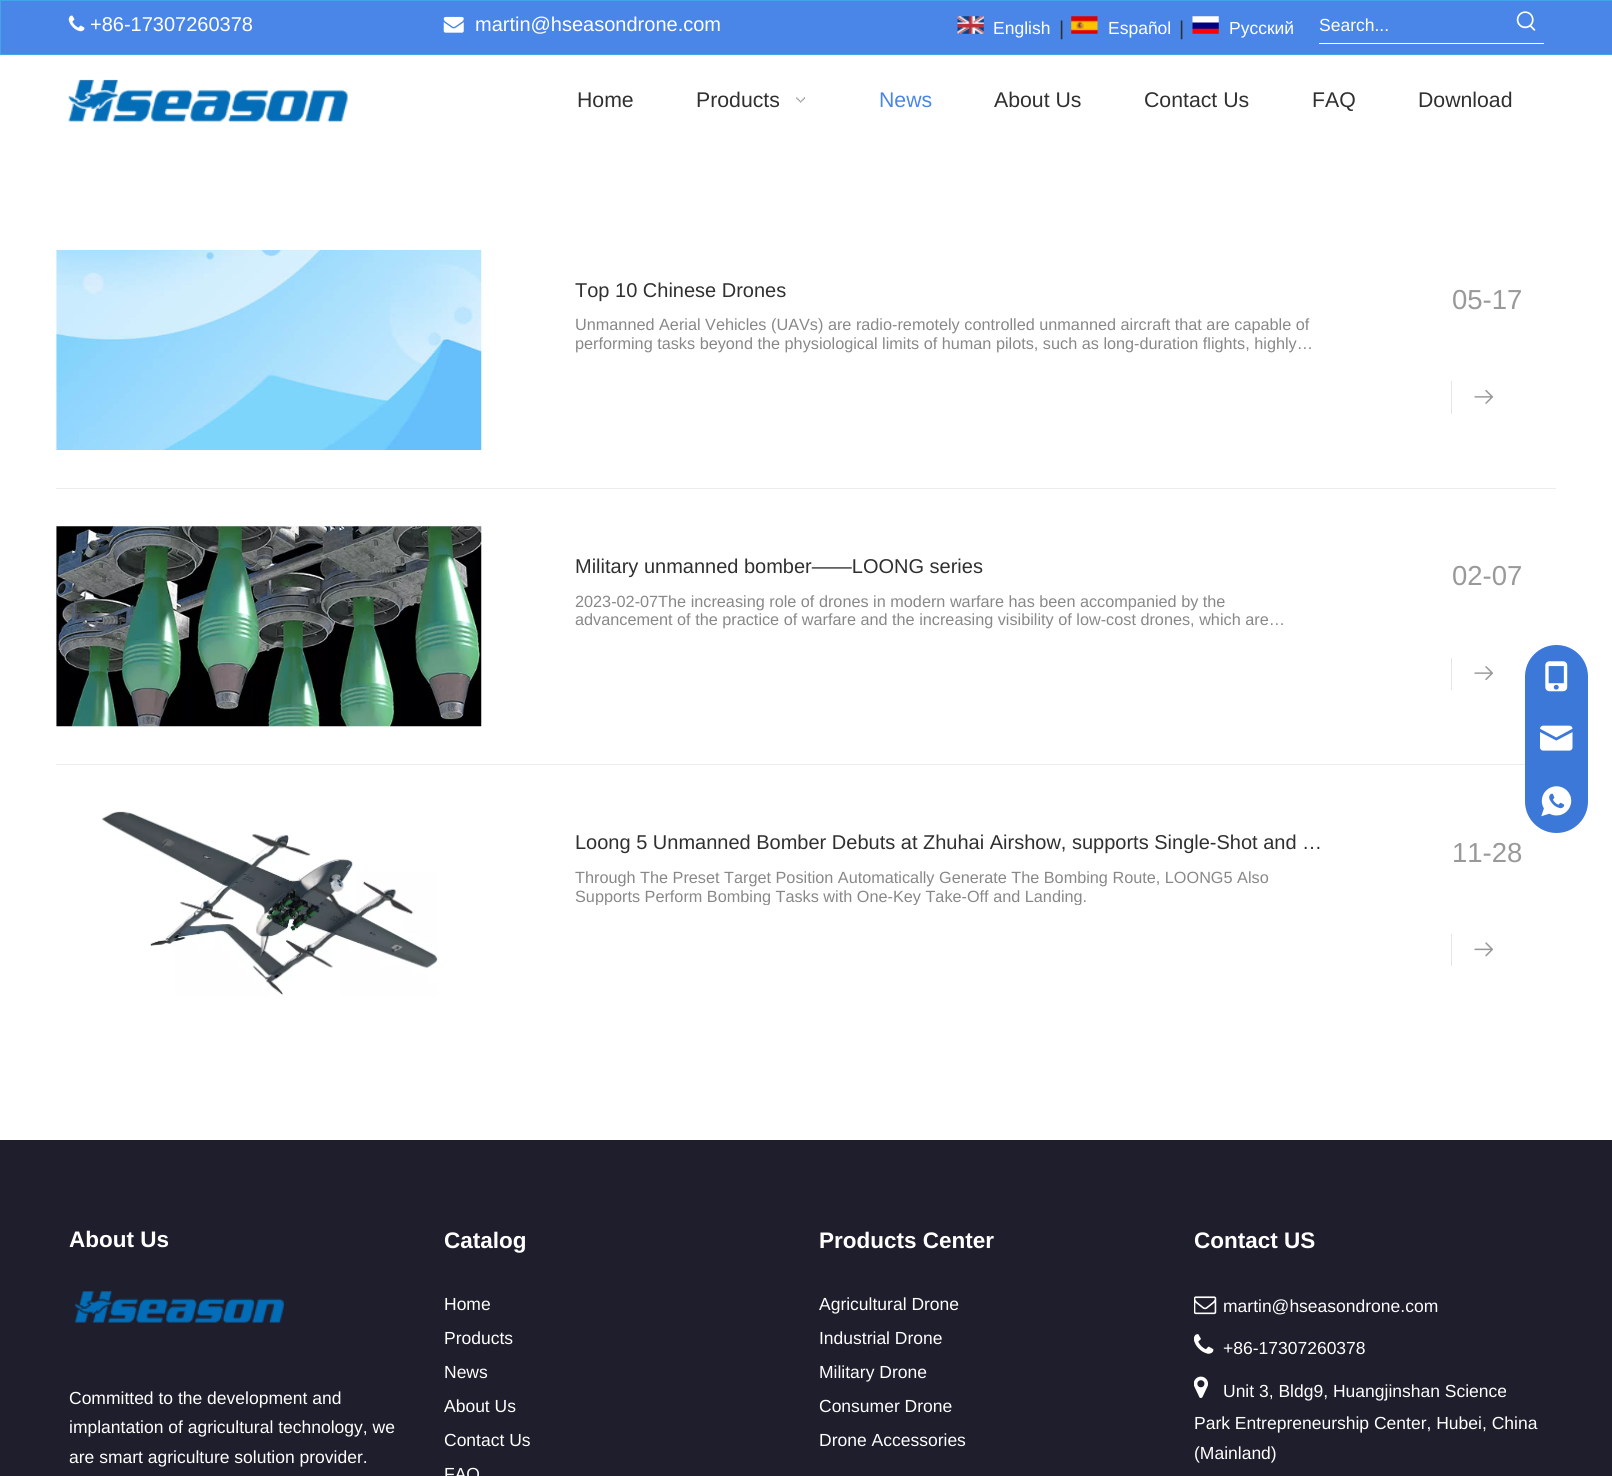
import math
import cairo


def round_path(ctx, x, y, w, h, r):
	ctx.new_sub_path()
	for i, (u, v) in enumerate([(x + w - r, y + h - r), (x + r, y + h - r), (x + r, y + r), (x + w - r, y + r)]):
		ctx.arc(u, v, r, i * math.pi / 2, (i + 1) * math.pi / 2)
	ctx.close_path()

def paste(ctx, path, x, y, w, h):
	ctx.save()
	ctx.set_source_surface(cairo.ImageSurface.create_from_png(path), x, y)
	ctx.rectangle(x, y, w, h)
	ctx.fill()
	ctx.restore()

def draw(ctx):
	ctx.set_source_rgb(1, 1, 1)
	ctx.paint()
	ctx.set_source_rgb(0.29, 0.525, 0.91)
	ctx.rectangle(0.5, 0.5, 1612, 54)
	ctx.fill_preserve()
	ctx.set_source_rgb(0.259, 0.647, 0.902)
	ctx.set_line_width(1)
	ctx.stroke()
	paste(ctx, 'media/1.png', 68, 15, 17, 17)
	ctx.select_font_face('Liberation Sans')
	ctx.set_font_size(20)
	ctx.set_source_rgb(1, 1, 1)
	ctx.move_to(90, 31)
	ctx.show_text('+86-17307260378')
	paste(ctx, 'media/2.png', 443, 16, 21, 17)
	ctx.move_to(475, 31)
	ctx.show_text('martin@hseasondrone.com')
	paste(ctx, 'media/3.png', 957, 16, 27, 18)
	ctx.set_font_size(17.5)
	ctx.move_to(993, 34)
	ctx.show_text('English')
	ctx.set_font_size(20)
	ctx.set_source_rgb(0.188, 0.188, 0.188)
	ctx.move_to(1059, 35)
	ctx.show_text('|')
	paste(ctx, 'media/4.png', 1071, 16, 27, 18)
	ctx.set_font_size(17.5)
	ctx.set_source_rgb(1, 1, 1)
	ctx.move_to(1108, 34)
	ctx.show_text('Español')
	ctx.set_font_size(20)
	ctx.set_source_rgb(0.188, 0.188, 0.188)
	ctx.move_to(1179, 35)
	ctx.show_text('|')
	paste(ctx, 'media/5.png', 1192, 16, 27, 18)
	ctx.set_font_size(17.5)
	ctx.set_source_rgb(1, 1, 1)
	ctx.move_to(1229, 34)
	ctx.show_text('Pусский')
	ctx.rectangle(1319, 43, 225, 1)
	ctx.fill()
	ctx.move_to(1319, 31)
	ctx.show_text('Search...')
	paste(ctx, 'media/6.png', 1516, 11, 20, 20)
	paste(ctx, 'media/7.png', 68, 79, 280, 43)
	ctx.set_font_size(21.25)
	ctx.set_source_rgb(0.188, 0.188, 0.188)
	ctx.move_to(577, 107)
	ctx.show_text('Home')
	ctx.move_to(696, 107)
	ctx.show_text('Products')
	paste(ctx, 'media/8.png', 796, 97, 9, 6)
	ctx.set_source_rgb(0.29, 0.525, 0.91)
	ctx.move_to(879, 107)
	ctx.show_text('News')
	ctx.set_source_rgb(0.188, 0.188, 0.188)
	for x, y, s in [
		(994, 107, 'About Us'),
		(1144, 107, 'Contact Us'),
		(1312, 107, 'FAQ'),
		(1418, 107, 'Download'),
	]:
		ctx.move_to(x, y)
		ctx.show_text(s)
	paste(ctx, 'media/9.png', 56, 250, 426, 200)
	ctx.set_font_size(20)
	ctx.move_to(575, 297)
	ctx.show_text('Top 10 Chinese Drones')
	ctx.set_font_size(16.25)
	ctx.set_source_rgb(0.533, 0.533, 0.533)
	ctx.move_to(575, 330)
	ctx.show_text('Unmanned Aerial Vehicles (UAVs) are radio-remotely controlled unmanned aircraft that are capable of')
	ctx.move_to(575, 349)
	ctx.show_text('performing tasks beyond the physiological limits of human pilots, such as long-duration flights, highly…')
	ctx.set_font_size(27.5)
	ctx.set_source_rgb(0.6, 0.6, 0.6)
	ctx.move_to(1452, 309)
	ctx.show_text('05-17')
	ctx.set_source_rgb(0.898, 0.898, 0.898)
	ctx.rectangle(1451, 381, 1, 33)
	ctx.fill()
	paste(ctx, 'media/10.png', 1474, 389, 19, 15)
	ctx.set_source_rgb(0.922, 0.922, 0.922)
	ctx.rectangle(56, 488, 1500, 1)
	ctx.fill()
	paste(ctx, 'media/11.png', 56, 526, 426, 201)
	ctx.set_font_size(20)
	ctx.set_source_rgb(0.188, 0.188, 0.188)
	ctx.move_to(575, 573)
	ctx.show_text('Military unmanned bomber——LOONG series')
	ctx.set_font_size(16.25)
	ctx.set_source_rgb(0.533, 0.533, 0.533)
	ctx.move_to(575, 607)
	ctx.show_text('2023-02-07The increasing role of drones in modern warfare has been accompanied by the')
	ctx.move_to(575, 625)
	ctx.show_text('advancement of the practice of warfare and the increasing visibility of low-cost drones, which are…')
	ctx.set_font_size(27.5)
	ctx.set_source_rgb(0.6, 0.6, 0.6)
	ctx.move_to(1452, 585)
	ctx.show_text('02-07')
	ctx.set_source_rgb(0.898, 0.898, 0.898)
	ctx.rectangle(1451, 658, 1, 32)
	ctx.fill()
	paste(ctx, 'media/12.png', 1474, 666, 19, 15)
	ctx.set_source_rgb(0.922, 0.922, 0.922)
	ctx.rectangle(56, 764, 1469, 1)
	ctx.fill()
	paste(ctx, 'media/13.png', 101, 811, 337, 185)
	ctx.set_font_size(20)
	ctx.set_source_rgb(0.188, 0.188, 0.188)
	ctx.move_to(575, 849)
	ctx.show_text('Loong 5 Unmanned Bomber Debuts at Zhuhai Airshow, supports Single-Shot and …')
	ctx.set_font_size(16.25)
	ctx.set_source_rgb(0.533, 0.533, 0.533)
	ctx.move_to(575, 883)
	ctx.show_text('Through The Preset Target Position Automatically Generate The Bombing Route, LOONG5 Also')
	ctx.save()
	ctx.rectangle(575, 854, 750, 51)
	ctx.clip()
	ctx.move_to(575, 902)
	ctx.show_text('Supports Perform Bombing Tasks with One-Key Take-Off and Landing.')
	ctx.restore()
	ctx.set_font_size(27.5)
	ctx.set_source_rgb(0.6, 0.6, 0.6)
	ctx.move_to(1452, 862)
	ctx.show_text('11-28')
	ctx.set_source_rgb(0.898, 0.898, 0.898)
	ctx.rectangle(1451, 934, 1, 32)
	ctx.fill()
	paste(ctx, 'media/14.png', 1474, 942, 19, 15)
	ctx.set_source_rgb(0.235, 0.471, 0.847)
	round_path(ctx, 1525, 645, 63, 188, 31.5)
	ctx.fill()
	paste(ctx, 'media/15.png', 1545, 661, 23, 31)
	paste(ctx, 'media/16.png', 1540, 725, 33, 26)
	paste(ctx, 'media/17.png', 1541, 786, 31, 31)
	ctx.set_source_rgb(0.118, 0.118, 0.176)
	ctx.rectangle(0, 1140, 1612, 336)
	ctx.fill()
	ctx.select_font_face('Liberation Sans', cairo.FONT_SLANT_NORMAL, cairo.FONT_WEIGHT_BOLD)
	ctx.set_font_size(22.5)
	ctx.set_source_rgb(1, 1, 1)
	ctx.move_to(69, 1247)
	ctx.show_text('About Us')
	paste(ctx, 'media/18.png', 74, 1291, 210, 32)
	ctx.select_font_face('Liberation Sans')
	ctx.set_font_size(17.5)
	for x, y, s in [
		(69, 1404, 'Committed to the development and'),
		(69, 1433, 'implantation of agricultural technology, we'),
		(69, 1463, 'are smart agriculture solution provider.'),
	]:
		ctx.move_to(x, y)
		ctx.show_text(s)
	ctx.select_font_face('Liberation Sans', cairo.FONT_SLANT_NORMAL, cairo.FONT_WEIGHT_BOLD)
	ctx.set_font_size(22.5)
	ctx.move_to(444, 1248)
	ctx.show_text('Catalog')
	ctx.select_font_face('Liberation Sans')
	ctx.set_font_size(17.5)
	for x, y, s in [
		(444, 1310, 'Home'),
		(444, 1344, 'Products'),
		(444, 1378, 'News'),
		(444, 1412, 'About Us'),
		(444, 1446, 'Contact Us'),
		(444, 1480, 'FAQ'),
	]:
		ctx.move_to(x, y)
		ctx.show_text(s)
	ctx.select_font_face('Liberation Sans', cairo.FONT_SLANT_NORMAL, cairo.FONT_WEIGHT_BOLD)
	ctx.set_font_size(22.5)
	ctx.move_to(819, 1248)
	ctx.show_text('Products Center')
	ctx.select_font_face('Liberation Sans')
	ctx.set_font_size(17.5)
	for x, y, s in [
		(819, 1310, 'Agricultural Drone'),
		(819, 1344, 'Industrial Drone'),
		(819, 1378, 'Military Drone'),
		(819, 1412, 'Consumer Drone'),
		(819, 1446, 'Drone Accessories'),
	]:
		ctx.move_to(x, y)
		ctx.show_text(s)
	ctx.select_font_face('Liberation Sans', cairo.FONT_SLANT_NORMAL, cairo.FONT_WEIGHT_BOLD)
	ctx.set_font_size(22.5)
	ctx.move_to(1194, 1248)
	ctx.show_text('Contact US')
	paste(ctx, 'media/19.png', 1194, 1296, 23, 19)
	ctx.select_font_face('Liberation Sans')
	ctx.set_font_size(17.5)
	ctx.move_to(1223, 1312)
	ctx.show_text('martin@hseasondrone.com')
	paste(ctx, 'media/20.png', 1194, 1334, 20, 20)
	ctx.move_to(1223, 1354)
	ctx.show_text('+86-17307260378')
	paste(ctx, 'media/21.png', 1194, 1376, 14, 22)
	for x, y, s in [
		(1223, 1397, 'Unit 3, Bldg9, Huangjinshan Science'),
		(1194, 1429, 'Park Entrepreneurship Center, Hubei, China'),
		(1194, 1459, '(Mainland)'),
	]:
		ctx.move_to(x, y)
		ctx.show_text(s)


surface = cairo.ImageSurface(cairo.FORMAT_RGB24, 1612, 1476)
ctx = cairo.Context(surface)
options = cairo.FontOptions()
options.set_hint_metrics(cairo.HINT_METRICS_OFF)
options.set_hint_style(cairo.HINT_STYLE_NONE)
ctx.set_font_options(options)
ctx.set_miter_limit(4)
draw(ctx)
surface.write_to_png('image.png')
